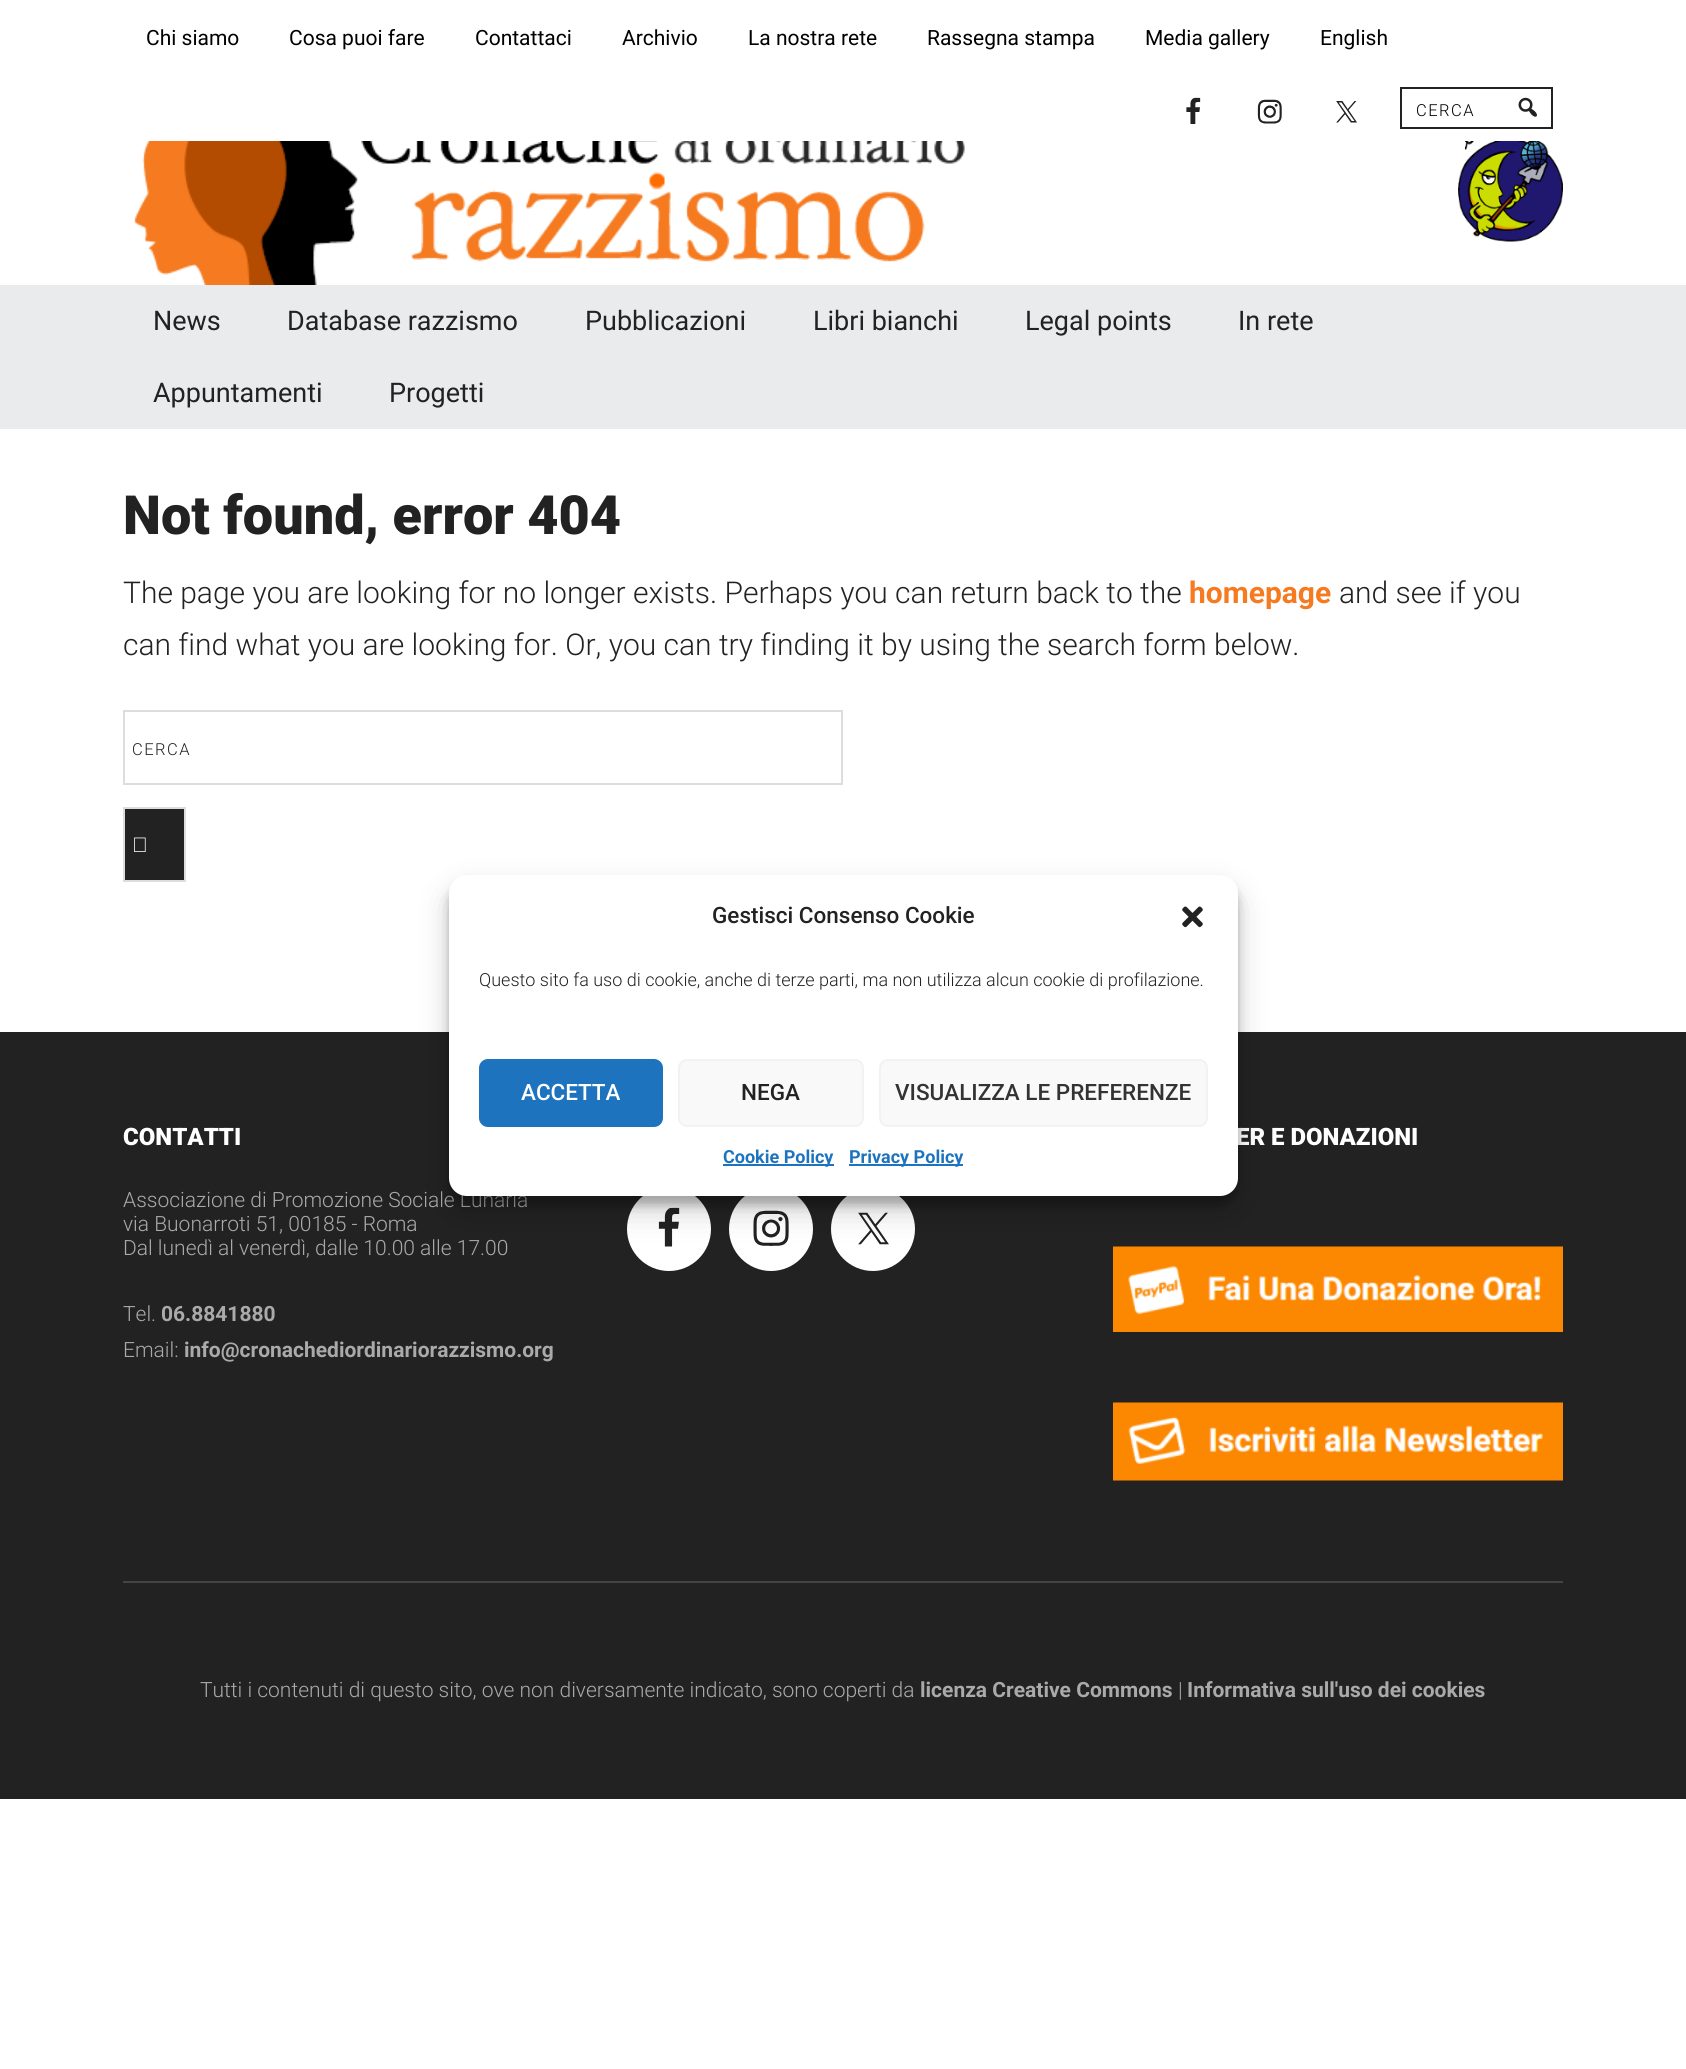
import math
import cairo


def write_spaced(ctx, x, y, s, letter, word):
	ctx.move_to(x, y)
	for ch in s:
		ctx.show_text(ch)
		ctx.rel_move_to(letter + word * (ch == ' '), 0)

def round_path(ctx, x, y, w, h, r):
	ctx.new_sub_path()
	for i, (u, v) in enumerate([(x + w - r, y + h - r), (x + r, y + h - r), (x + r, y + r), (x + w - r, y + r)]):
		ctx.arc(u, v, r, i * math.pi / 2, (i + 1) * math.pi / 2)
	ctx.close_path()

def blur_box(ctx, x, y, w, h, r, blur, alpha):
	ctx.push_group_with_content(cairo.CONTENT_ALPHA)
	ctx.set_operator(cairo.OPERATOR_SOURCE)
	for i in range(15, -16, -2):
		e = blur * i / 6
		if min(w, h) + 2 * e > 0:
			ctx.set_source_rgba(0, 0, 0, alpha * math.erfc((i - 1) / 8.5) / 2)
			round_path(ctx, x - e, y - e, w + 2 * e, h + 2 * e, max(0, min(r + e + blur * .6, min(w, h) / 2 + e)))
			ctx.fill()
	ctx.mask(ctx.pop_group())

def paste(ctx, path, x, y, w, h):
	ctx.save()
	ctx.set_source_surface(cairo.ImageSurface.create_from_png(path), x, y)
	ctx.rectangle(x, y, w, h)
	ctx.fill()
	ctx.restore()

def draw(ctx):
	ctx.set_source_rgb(1, 1, 1)
	ctx.paint()
	ctx.select_font_face('Roboto')
	ctx.set_font_size(21)
	ctx.set_source_rgb(0, 0, 0)
	for x, y, s in [
		(146, 45, 'Chi siamo'),
		(289, 45, 'Cosa puoi fare'),
		(475, 45, 'Contattaci'),
		(622, 45, 'Archivio'),
		(748, 45, 'La nostra rete'),
		(927, 45, 'Rassegna stampa'),
		(1145, 45, 'Media gallery'),
		(1320, 45, 'English'),
	]:
		ctx.move_to(x, y)
		ctx.show_text(s)
	paste(ctx, 'media/1.png', 1186, 97, 15, 27)
	paste(ctx, 'media/2.png', 1257, 99, 25, 25)
	paste(ctx, 'media/3.png', 1336, 101, 21, 22)
	ctx.rectangle(1401, 88, 151, 40)
	ctx.set_source_rgb(0.133, 0.133, 0.133)
	ctx.stroke()
	ctx.select_font_face('Roboto Light')
	ctx.set_font_size(16.5)
	ctx.set_source_rgb(0, 0, 0)
	write_spaced(ctx, 1416, 116, 'CERCA', 1.5, 0)
	paste(ctx, 'media/4.png', 1518, 97, 19, 20)
	paste(ctx, 'media/5.png', 134, 141, 831, 144)
	paste(ctx, 'media/6.png', 1458, 141, 105, 101)
	ctx.set_source_rgb(0.914, 0.918, 0.925)
	ctx.rectangle(0, 285, 1686, 144)
	ctx.fill()
	ctx.select_font_face('Roboto')
	ctx.set_font_size(27)
	ctx.set_source_rgb(0.133, 0.133, 0.133)
	for x, y, s in [
		(153, 330, 'News'),
		(287, 330, 'Database razzismo'),
		(585, 330, 'Pubblicazioni'),
		(813, 330, 'Libri bianchi'),
		(1025, 330, 'Legal points'),
		(1238, 330, 'In rete'),
		(153, 402, 'Appuntamenti'),
		(389, 402, 'Progetti'),
	]:
		ctx.move_to(x, y)
		ctx.show_text(s)
	ctx.select_font_face('Roboto Black')
	ctx.set_font_size(54)
	ctx.move_to(123, 534)
	ctx.show_text('Not found, error 404')
	ctx.select_font_face('Roboto Light')
	ctx.set_font_size(30)
	ctx.move_to(123, 603)
	ctx.show_text('The page you are looking for no longer exists. Perhaps you can return back to the')
	ctx.select_font_face('Roboto', cairo.FONT_SLANT_NORMAL, cairo.FONT_WEIGHT_BOLD)
	ctx.set_source_rgb(0.961, 0.478, 0.125)
	ctx.move_to(1189, 603)
	ctx.show_text('homepage')
	ctx.select_font_face('Roboto Light')
	ctx.set_source_rgb(0.133, 0.133, 0.133)
	ctx.move_to(1339, 603)
	ctx.show_text('and see if you')
	ctx.move_to(123, 655)
	ctx.show_text('can find what you are looking for. Or, you can try finding it by using the search form below.')
	ctx.rectangle(124, 711, 718, 73)
	ctx.set_source_rgb(0.867, 0.867, 0.867)
	ctx.stroke()
	ctx.set_font_size(16.5)
	ctx.set_source_rgb(0.133, 0.133, 0.133)
	write_spaced(ctx, 132, 755, 'CERCA', 1.5, 0)
	ctx.rectangle(124, 808, 61, 73)
	ctx.fill_preserve()
	ctx.set_source_rgb(0.867, 0.867, 0.867)
	ctx.stroke()
	paste(ctx, 'media/7.png', 134, 837, 12, 15)
	ctx.set_source_rgb(0.133, 0.133, 0.133)
	ctx.rectangle(0, 1032, 1686, 767)
	ctx.fill()
	ctx.select_font_face('Roboto Black')
	ctx.set_font_size(24)
	ctx.set_source_rgb(1, 1, 1)
	ctx.move_to(123, 1145)
	ctx.show_text('CONTATTI')
	ctx.select_font_face('Roboto Light')
	ctx.set_font_size(21)
	ctx.set_source_rgb(0.667, 0.667, 0.667)
	for x, y, s in [
		(123, 1207, 'Associazione di Promozione Sociale Lunaria'),
		(123, 1231, 'via Buonarroti 51, 00185 - Roma'),
		(123, 1255, 'Dal lunedì al venerdì, dalle 10.00 alle 17.00'),
		(123, 1321, 'Tel.'),
	]:
		ctx.move_to(x, y)
		ctx.show_text(s)
	ctx.select_font_face('Roboto', cairo.FONT_SLANT_NORMAL, cairo.FONT_WEIGHT_BOLD)
	ctx.move_to(161, 1321)
	ctx.show_text('06.8841880')
	ctx.select_font_face('Roboto Light')
	ctx.move_to(123, 1357)
	ctx.show_text('Email:')
	ctx.select_font_face('Roboto', cairo.FONT_SLANT_NORMAL, cairo.FONT_WEIGHT_BOLD)
	ctx.move_to(184, 1357)
	ctx.show_text('info@cronachediordinariorazzismo.org')
	ctx.select_font_face('Roboto Black')
	ctx.set_font_size(24)
	ctx.set_source_rgb(1, 1, 1)
	ctx.move_to(1236, 1145)
	ctx.show_text('ER E DONAZIONI')
	paste(ctx, 'media/8.png', 1113, 1246, 450, 86)
	paste(ctx, 'media/9.png', 1113, 1402, 450, 79)
	ctx.arc(669, 1229, 42, 0, 2 * math.pi)
	ctx.fill()
	paste(ctx, 'media/10.png', 658, 1207, 22, 40)
	ctx.arc(771, 1229, 42, 0, 2 * math.pi)
	ctx.fill()
	paste(ctx, 'media/11.png', 753, 1210, 36, 36)
	ctx.arc(873, 1229, 42, 0, 2 * math.pi)
	ctx.fill()
	paste(ctx, 'media/12.png', 858, 1212, 31, 33)
	ctx.set_source_rgb(0.267, 0.267, 0.267)
	ctx.rectangle(123, 1581, 1440, 2)
	ctx.fill()
	ctx.select_font_face('Roboto Light')
	ctx.set_font_size(21)
	ctx.set_source_rgb(0.667, 0.667, 0.667)
	ctx.move_to(200, 1697)
	ctx.show_text('Tutti i contenuti di questo sito, ove non diversamente indicato, sono coperti da')
	ctx.select_font_face('Roboto', cairo.FONT_SLANT_NORMAL, cairo.FONT_WEIGHT_BOLD)
	ctx.move_to(920, 1697)
	ctx.show_text('licenza Creative Commons')
	ctx.select_font_face('Roboto Light')
	ctx.move_to(1178, 1697)
	ctx.show_text('|')
	ctx.select_font_face('Roboto', cairo.FONT_SLANT_NORMAL, cairo.FONT_WEIGHT_BOLD)
	ctx.move_to(1187, 1697)
	ctx.show_text('Informativa sull\'uso dei cookies')
	ctx.set_source_rgb(0, 0, 0)
	blur_box(ctx, 449, 884, 789, 321, 18, 4.5, 0.23)
	blur_box(ctx, 449, 890, 789, 321, 18, 15, 0.19)
	ctx.set_source_rgb(1, 1, 1)
	round_path(ctx, 449, 875, 789, 321, 18)
	ctx.fill()
	ctx.select_font_face('Roboto Medium')
	ctx.set_font_size(22.5)
	ctx.set_source_rgb(0.133, 0.133, 0.133)
	ctx.move_to(712, 923)
	ctx.show_text('Gestisci Consenso Cookie')
	paste(ctx, 'media/13.png', 1182, 906, 21, 22)
	ctx.select_font_face('Roboto Light')
	ctx.set_font_size(18)
	ctx.move_to(479, 986)
	ctx.show_text('Questo sito fa uso di cookie, anche di terze parti, ma non utilizza alcun cookie di profilazione.')
	ctx.set_source_rgb(0.118, 0.451, 0.745)
	round_path(ctx, 480, 1060, 182, 66, 8)
	ctx.fill_preserve()
	ctx.stroke()
	ctx.select_font_face('Roboto Medium')
	ctx.set_font_size(22.5)
	ctx.set_source_rgb(1, 1, 1)
	ctx.move_to(521, 1100)
	ctx.show_text('ACCETTA')
	ctx.set_source_rgb(0.976, 0.976, 0.976)
	round_path(ctx, 679, 1060, 184, 66, 8)
	ctx.fill_preserve()
	ctx.set_source_rgb(0.949, 0.949, 0.949)
	ctx.stroke()
	ctx.set_source_rgb(0.133, 0.133, 0.133)
	ctx.move_to(741, 1100)
	ctx.show_text('NEGA')
	ctx.set_source_rgb(0.976, 0.976, 0.976)
	round_path(ctx, 880, 1060, 327, 66, 8)
	ctx.fill_preserve()
	ctx.set_source_rgb(0.949, 0.949, 0.949)
	ctx.stroke()
	ctx.set_source_rgb(0.2, 0.2, 0.2)
	ctx.move_to(895, 1100)
	ctx.show_text('VISUALIZZA LE PREFERENZE')
	ctx.set_source_rgb(0.118, 0.451, 0.745)
	ctx.rectangle(723, 1164, 111, 2)
	ctx.fill()
	ctx.select_font_face('Roboto', cairo.FONT_SLANT_NORMAL, cairo.FONT_WEIGHT_BOLD)
	ctx.set_font_size(18)
	ctx.move_to(723, 1163)
	ctx.show_text('Cookie Policy')
	ctx.rectangle(849, 1164, 114, 2)
	ctx.fill()
	ctx.move_to(849, 1163)
	ctx.show_text('Privacy Policy')


surface = cairo.ImageSurface(cairo.FORMAT_RGB24, 1686, 2069)
ctx = cairo.Context(surface)
options = cairo.FontOptions()
options.set_hint_metrics(cairo.HINT_METRICS_OFF)
options.set_hint_style(cairo.HINT_STYLE_NONE)
ctx.set_font_options(options)
ctx.set_miter_limit(4)
draw(ctx)
surface.write_to_png('image.png')
